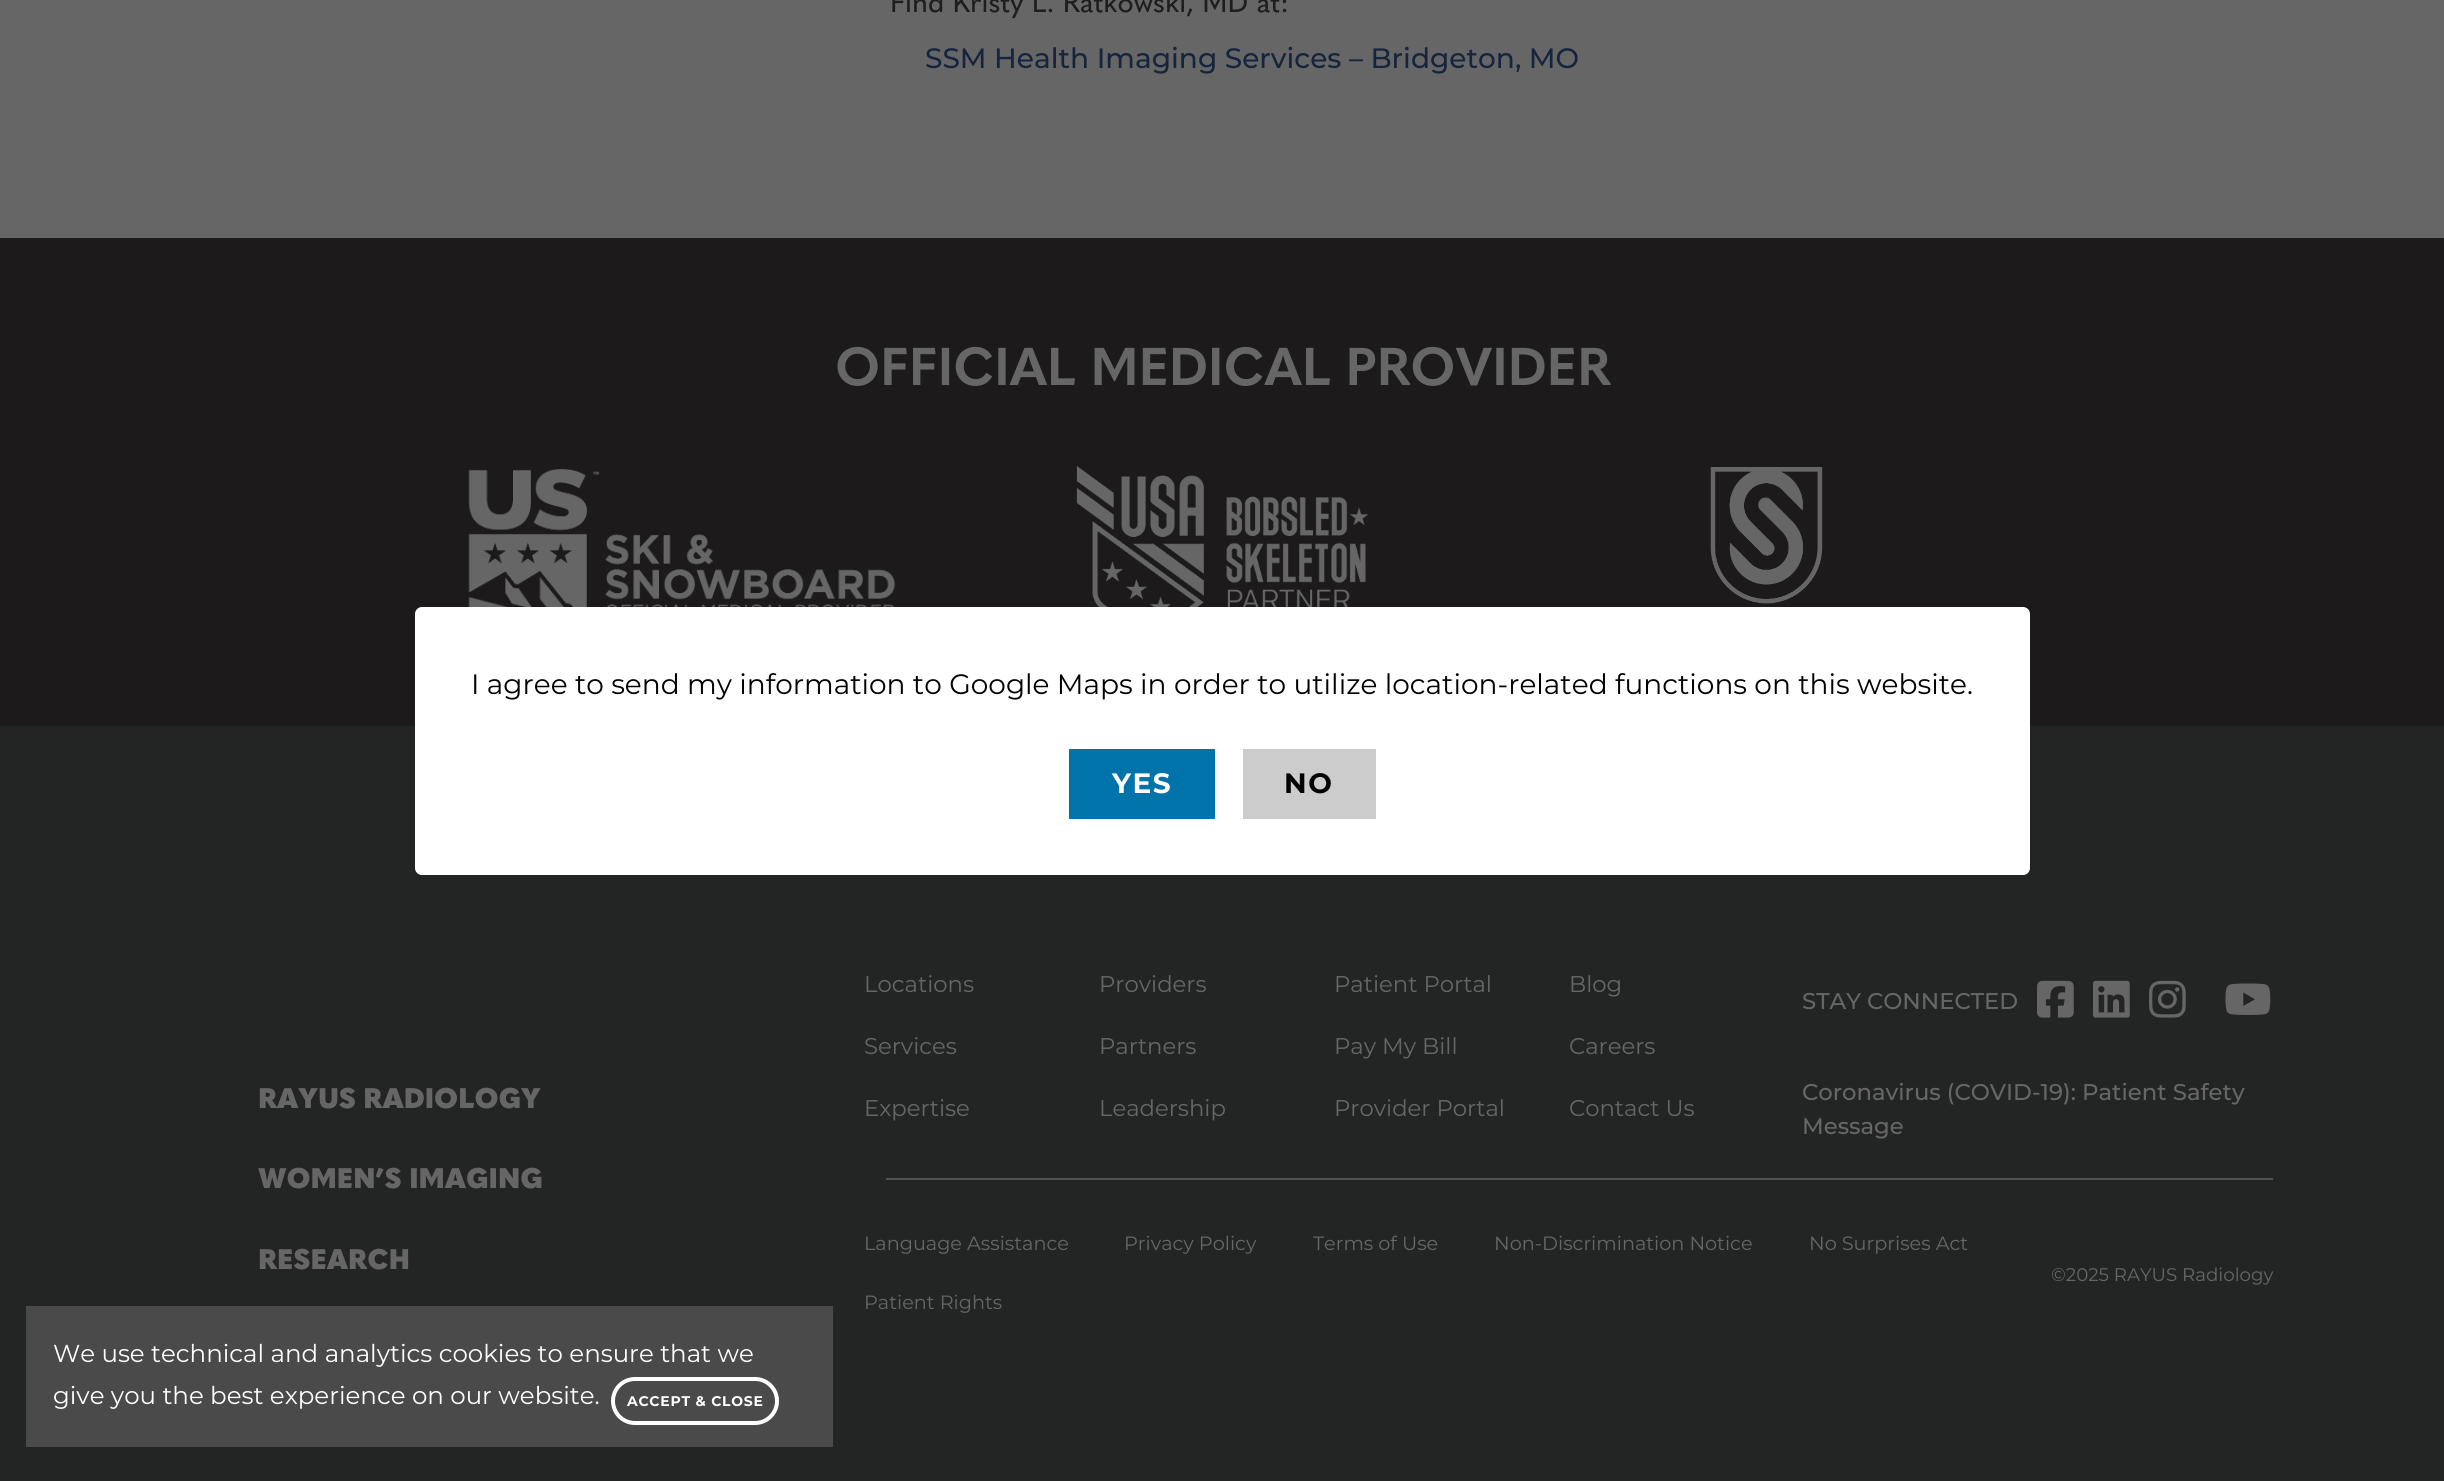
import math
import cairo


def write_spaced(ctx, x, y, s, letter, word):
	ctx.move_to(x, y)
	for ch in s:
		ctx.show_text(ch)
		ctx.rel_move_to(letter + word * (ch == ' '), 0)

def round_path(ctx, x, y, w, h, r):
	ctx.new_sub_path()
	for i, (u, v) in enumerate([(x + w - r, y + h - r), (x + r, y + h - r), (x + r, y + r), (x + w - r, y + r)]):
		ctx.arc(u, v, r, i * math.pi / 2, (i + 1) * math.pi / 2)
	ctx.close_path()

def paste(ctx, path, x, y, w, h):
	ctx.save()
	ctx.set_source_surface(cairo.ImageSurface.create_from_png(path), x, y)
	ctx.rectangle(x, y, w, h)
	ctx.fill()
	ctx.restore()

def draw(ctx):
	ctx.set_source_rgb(0.4, 0.4, 0.4)
	ctx.paint()
	ctx.select_font_face('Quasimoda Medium')
	ctx.set_font_size(28)
	ctx.set_source_rgb(0.118, 0.118, 0.118)
	ctx.move_to(890, 12)
	ctx.show_text('Find Kristy L. Ratkowski, MD at:')
	ctx.select_font_face('Montserrat Medium')
	ctx.set_source_rgb(0.086, 0.145, 0.247)
	ctx.move_to(925, 68)
	ctx.show_text('SSM Health Imaging Services – Bridgeton, MO')
	ctx.set_source_rgb(0.137, 0.141, 0.141)
	ctx.rectangle(0, 726, 2444, 755)
	ctx.fill()
	ctx.set_source_rgb(0.29, 0.29, 0.29)
	ctx.rectangle(26, 1306, 807, 141)
	ctx.fill()
	ctx.select_font_face('Montserrat')
	ctx.set_font_size(24.5)
	ctx.set_source_rgb(1, 1, 1)
	ctx.move_to(53, 1362)
	ctx.show_text('We use technical and analytics cookies to ensure that we')
	ctx.move_to(53, 1404)
	ctx.show_text('give you the best experience on our website.')
	round_path(ctx, 613, 1379, 164, 44, 22)
	ctx.set_line_width(4)
	ctx.stroke()
	ctx.select_font_face('Montserrat', cairo.FONT_SLANT_NORMAL, cairo.FONT_WEIGHT_BOLD)
	ctx.set_font_size(14)
	write_spaced(ctx, 627, 1406, 'ACCEPT & CLOSE', 0.75, 0)
	ctx.set_source_rgb(0.11, 0.102, 0.102)
	ctx.rectangle(0, 238, 2444, 488)
	ctx.fill()
	ctx.select_font_face('Quasimoda', cairo.FONT_SLANT_NORMAL, cairo.FONT_WEIGHT_BOLD)
	ctx.set_font_size(52.5)
	ctx.set_source_rgb(0.4, 0.4, 0.4)
	ctx.move_to(835, 385)
	ctx.show_text('OFFICIAL MEDICAL PROVIDER')
	paste(ctx, 'media/1.png', 468, 469, 428, 138)
	paste(ctx, 'media/2.png', 1076, 466, 293, 141)
	paste(ctx, 'media/3.png', 1710, 467, 113, 137)
	ctx.set_source_rgb(1, 1, 1)
	round_path(ctx, 415, 607, 1615, 268, 7)
	ctx.fill()
	ctx.select_font_face('Montserrat')
	ctx.set_font_size(28)
	ctx.set_source_rgb(0, 0, 0)
	ctx.move_to(471, 694)
	ctx.show_text('I agree to send my information to Google Maps in order to utilize location-related functions on this website.')
	ctx.set_source_rgb(0, 0.451, 0.667)
	ctx.rectangle(1069, 749, 146, 70)
	ctx.fill()
	ctx.select_font_face('Montserrat', cairo.FONT_SLANT_NORMAL, cairo.FONT_WEIGHT_BOLD)
	ctx.set_source_rgb(1, 1, 1)
	write_spaced(ctx, 1112, 793, 'YES', 1.5, 0)
	ctx.set_source_rgb(0.8, 0.8, 0.8)
	ctx.rectangle(1243, 749, 133, 70)
	ctx.fill()
	ctx.set_source_rgb(0, 0, 0)
	write_spaced(ctx, 1284, 793, 'NO', 1.5, 0)
	ctx.select_font_face('Quasimoda Black')
	ctx.set_source_rgb(0.4, 0.4, 0.4)
	for x, y, s in [
		(258, 1108, 'RAYUS RADIOLOGY'),
		(258, 1188, 'WOMEN’S IMAGING'),
		(258, 1269, 'RESEARCH'),
	]:
		ctx.move_to(x, y)
		ctx.show_text(s)
	ctx.select_font_face('Montserrat')
	ctx.set_font_size(22.75)
	for x, y, s in [
		(864, 992, 'Locations'),
		(864, 1054, 'Services'),
		(864, 1116, 'Expertise'),
		(1099, 992, 'Providers'),
		(1099, 1054, 'Partners'),
		(1099, 1116, 'Leadership'),
		(1334, 992, 'Patient Portal'),
		(1334, 1054, 'Pay My Bill'),
		(1334, 1116, 'Provider Portal'),
		(1569, 992, 'Blog'),
		(1569, 1054, 'Careers'),
		(1569, 1116, 'Contact Us'),
	]:
		ctx.move_to(x, y)
		ctx.show_text(s)
	ctx.select_font_face('Montserrat Medium')
	ctx.move_to(1802, 1009)
	ctx.show_text('STAY CONNECTED')
	paste(ctx, 'media/4.png', 2037, 980, 37, 38)
	paste(ctx, 'media/5.png', 2093, 980, 37, 38)
	paste(ctx, 'media/6.png', 2149, 980, 37, 38)
	paste(ctx, 'media/7.png', 2225, 983, 46, 32)
	ctx.move_to(1802, 1100)
	ctx.show_text('Coronavirus (COVID-19): Patient Safety')
	ctx.move_to(1802, 1134)
	ctx.show_text('Message')
	ctx.set_source_rgb(0.318, 0.318, 0.318)
	ctx.rectangle(886, 1178, 1387, 2)
	ctx.fill()
	ctx.select_font_face('Montserrat')
	ctx.set_font_size(19.25)
	ctx.set_source_rgb(0.4, 0.4, 0.4)
	for x, y, s in [
		(864, 1250, 'Language Assistance'),
		(1124, 1250, 'Privacy Policy'),
		(1313, 1250, 'Terms of Use'),
		(1494, 1250, 'Non-Discrimination Notice'),
		(1809, 1250, 'No Surprises Act'),
		(864, 1309, 'Patient Rights'),
	]:
		ctx.move_to(x, y)
		ctx.show_text(s)
	ctx.set_font_size(18.25)
	ctx.move_to(2051, 1281)
	ctx.show_text('©2025 RAYUS Radiology')


surface = cairo.ImageSurface(cairo.FORMAT_RGB24, 2444, 1481)
ctx = cairo.Context(surface)
options = cairo.FontOptions()
options.set_hint_metrics(cairo.HINT_METRICS_OFF)
options.set_hint_style(cairo.HINT_STYLE_NONE)
ctx.set_font_options(options)
ctx.set_miter_limit(4)
draw(ctx)
surface.write_to_png('image.png')
